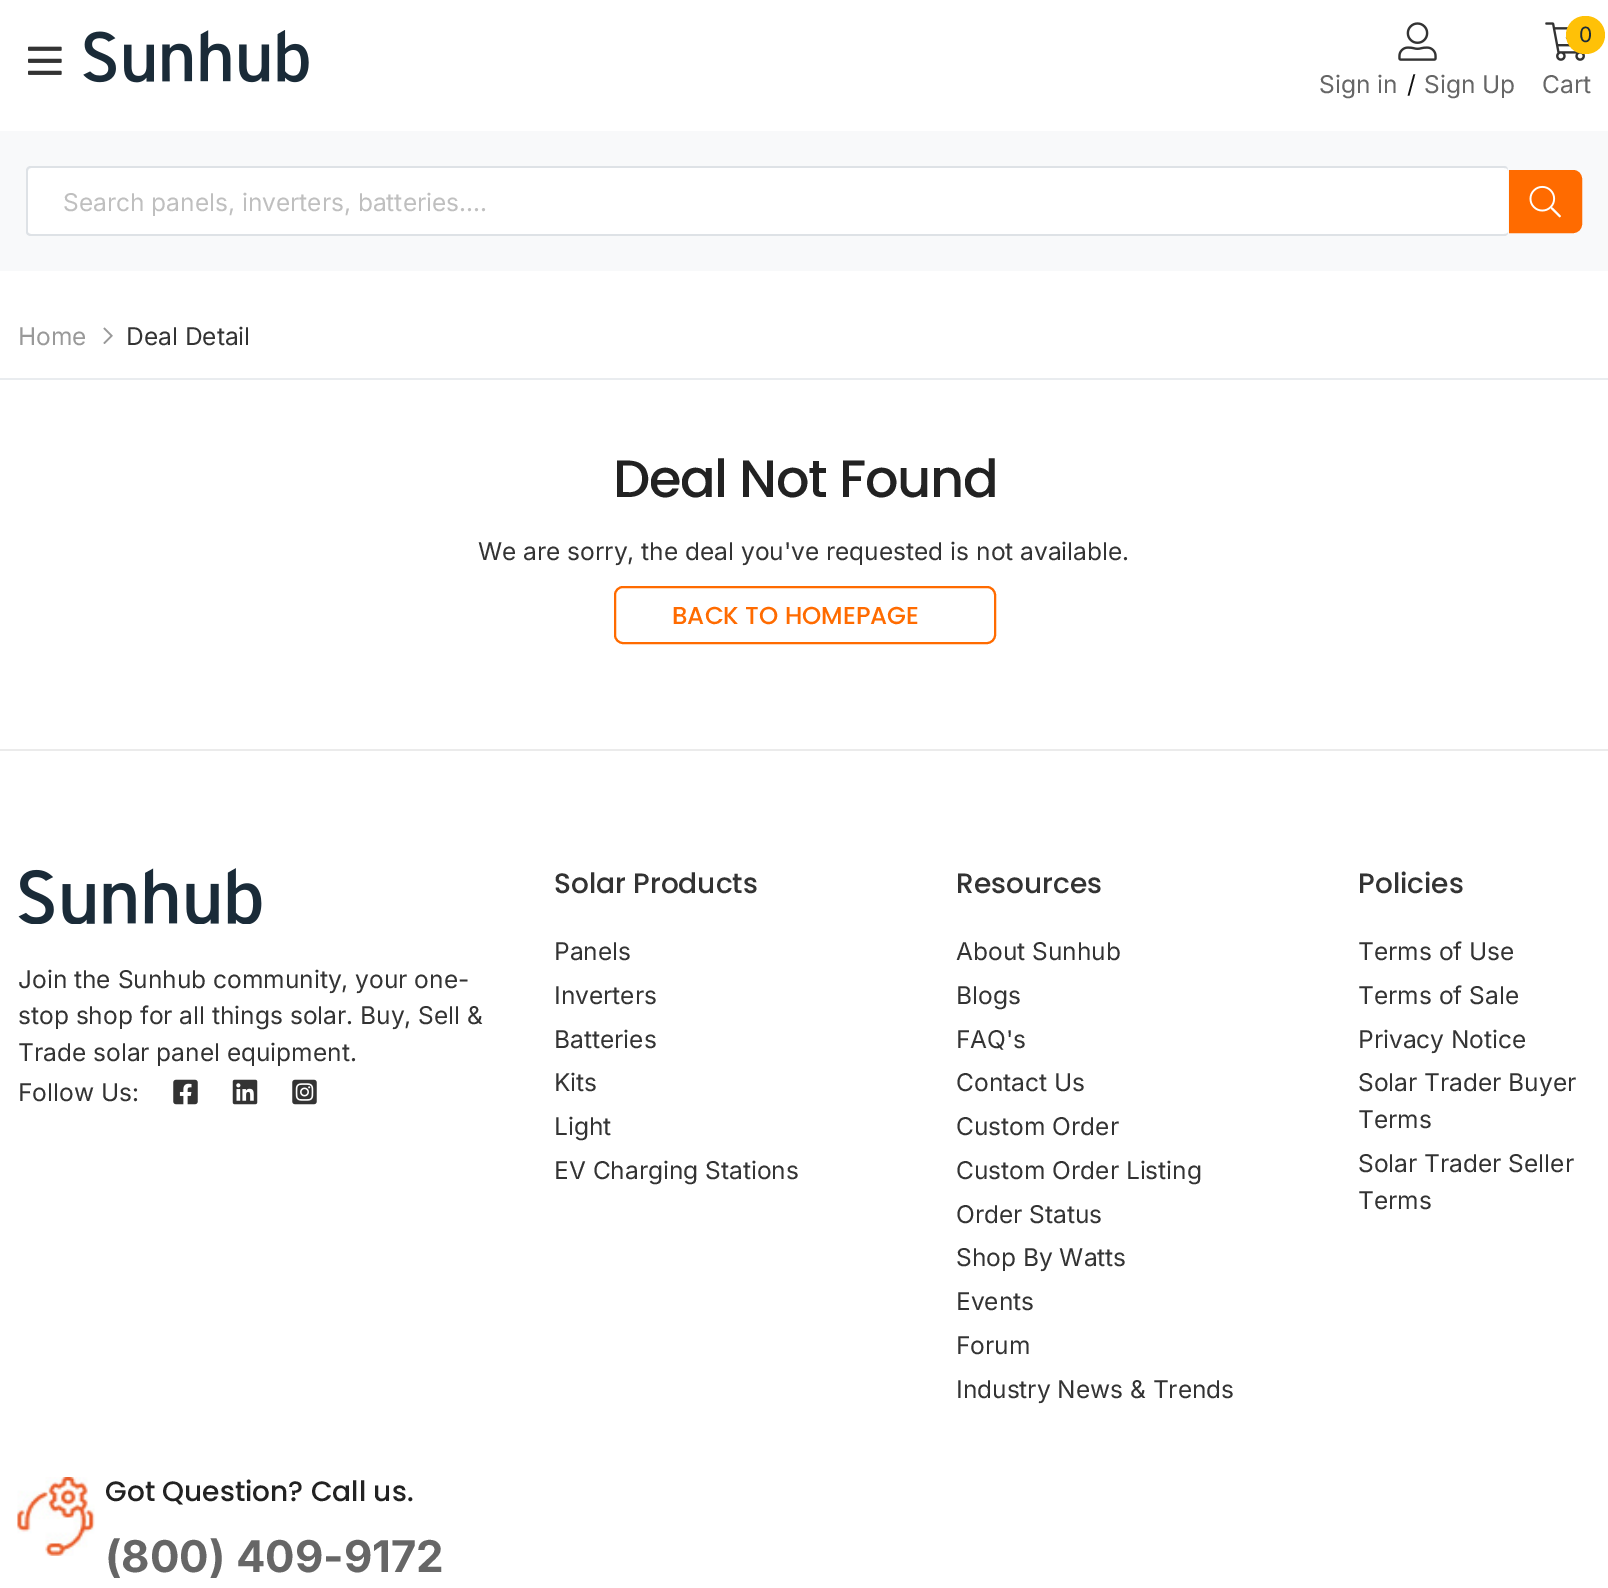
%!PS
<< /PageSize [1608 1588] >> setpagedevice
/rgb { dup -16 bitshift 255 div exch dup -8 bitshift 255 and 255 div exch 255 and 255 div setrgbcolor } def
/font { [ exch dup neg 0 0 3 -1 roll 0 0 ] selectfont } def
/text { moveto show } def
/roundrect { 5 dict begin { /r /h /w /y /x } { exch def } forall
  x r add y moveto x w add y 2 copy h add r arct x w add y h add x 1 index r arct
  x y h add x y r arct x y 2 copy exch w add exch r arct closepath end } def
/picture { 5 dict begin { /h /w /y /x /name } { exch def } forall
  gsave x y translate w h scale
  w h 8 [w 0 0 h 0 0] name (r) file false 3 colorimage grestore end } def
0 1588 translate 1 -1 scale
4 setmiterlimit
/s1 { /Inter-Regular 24.5 font 16#666666 rgb } def
/s2 { /Inter-Regular 24.5 font 16#111111 rgb } def
/s3 { /Inter-Regular 21 font 16#1A2B38 rgb } def
/s4 { /Inter-Regular 24.5 font 16#BFBFBF rgb } def
/s5 { /Inter-Regular 24.5 font 16#999999 rgb } def
/s6 { /Inter-Regular 24.5 font 16#333333 rgb } def
/s7 { /Poppins-Medium 24.5 font 16#FF6B00 rgb } def
/s8 { /Poppins-Medium 28 font 16#333333 rgb } def
/s9 { /Poppins-Medium 28 font 16#222222 rgb } def
/s10 { /Inter-Bold 43.75 font 16#666666 rgb } def
16#FFFFFF rgb
0 0 1608 1588 rectfill
(pic1.raw) 28 46 34 29 picture
(pic2.raw) 83 30 226 53 picture
(pic3.raw) 1398 22 39 39 picture
s1
(Sign in) 1319 93 text
s2
(/) 1407 93 text
s1
(Sign Up) 1424 93 text
(pic4.raw) 1545 22 40 39 picture
16#FFC107 rgb
1566 16 39 38 19 roundrect fill
s3
(0) 1579 42 text
s1
(Cart) 1542 93 text
16#F8F9FA rgb
0 131 1608 140 rectfill
16#FFFFFF rgb
31 168 moveto 1504 168 lineto 1507 168 1508 169 1508 171 curveto 1508 232 lineto 1508 233 1507 234 1504 234 curveto 31 234 lineto 29 234 28 233 28 232 curveto 28 171 lineto 28 169 29 168 31 168 curveto closepath fill
16#DEE2E6 rgb
31 166 moveto 1504 166 lineto 1507 166 1508 168 1508 171 curveto 1508 232 lineto 1508 234 1507 236 1504 236 curveto 31 236 lineto 28 236 26 234 26 232 curveto 26 171 lineto 26 168 28 166 31 166 curveto closepath 31 168 moveto 1504 168 lineto 1507 168 1508 169 1508 171 curveto 1508 232 lineto 1508 233 1507 234 1504 234 curveto 31 234 lineto 29 234 28 233 28 232 curveto 28 171 lineto 28 169 29 168 31 168 curveto closepath eofill
s4
(Search panels, inverters, batteries....) 63 211 text
16#FF6B00 rgb
1510 171 moveto 1573 171 lineto 1577.5 171 1581 174.5 1581 179 curveto 1581 224 lineto 1581 228.5 1577.5 232 1573 232 curveto 1510 232 lineto closepath gsave fill grestore
2 setlinewidth
stroke
(pic5.raw) 1529 185 32 33 picture
16#E9ECEF rgb
0 378 1608 2 rectfill
s5
(Home) 18 345 text
(pic6.raw) 103 327 10 17 picture
s6
(Deal Detail) 126 345 text
/Poppins-Medium 52.5 font
16#222222 rgb
613 497 moveto -1.25 0 (Deal Not Found) ashow
s6
(We are sorry, the deal you've requested is not available.) 478 560 text
16#FF6B00 rgb
615 587 380 56 8 roundrect stroke
s7
(BACK TO HOMEPAGE) 672 624 text
16#EBEBEB rgb
0 749 1608 2 rectfill
(pic7.raw) 18 868 244 56 picture
s6
(Join the Sunhub community, your one-) 18 988 text
(stop shop for all things solar. Buy, Sell &) 18 1024 text
(Trade solar panel equipment.) 18 1061 text
(Follow Us:) 18 1101 text
(pic8.raw) 173 1079 25 26 picture
(pic9.raw) 232 1079 26 26 picture
(pic10.raw) 292 1079 25 26 picture
s8
(Solar Products) 554 893 text
s6
(Panels) 554 960 text
(Inverters) 554 1004 text
(Batteries) 554 1048 text
(Kits) 554 1091 text
(Light) 554 1135 text
(EV Charging Stations) 554 1179 text
s8
(Resources) 956 893 text
s6
(About Sunhub) 956 960 text
(Blogs) 956 1004 text
(FAQ's) 956 1048 text
(Contact Us) 956 1091 text
(Custom Order) 956 1135 text
(Custom Order Listing) 956 1179 text
(Order Status) 956 1223 text
(Shop By Watts) 956 1266 text
(Events) 956 1310 text
(Forum) 956 1354 text
(Industry News & Trends) 956 1398 text
s8
(Policies) 1358 893 text
s6
(Terms of Use) 1358 960 text
(Terms of Sale) 1358 1004 text
(Privacy Notice) 1358 1048 text
(Solar Trader Buyer) 1358 1091 text
(Terms) 1358 1128 text
(Solar Trader Seller) 1358 1172 text
(Terms) 1358 1209 text
(pic11.raw) 17 1477 78 79 picture
s9
(Got Question? Call us.) 105 1501 text
s10
(\(800\) 409-9172) 105 1572 text
showpage
